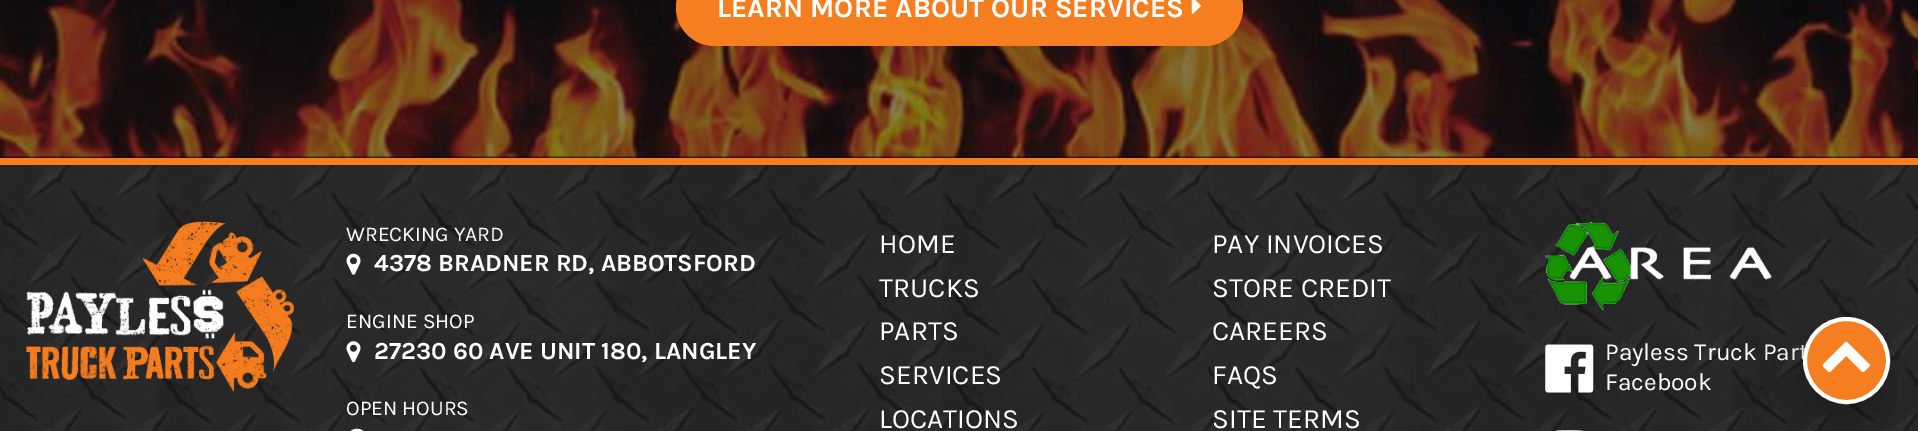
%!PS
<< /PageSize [1918 431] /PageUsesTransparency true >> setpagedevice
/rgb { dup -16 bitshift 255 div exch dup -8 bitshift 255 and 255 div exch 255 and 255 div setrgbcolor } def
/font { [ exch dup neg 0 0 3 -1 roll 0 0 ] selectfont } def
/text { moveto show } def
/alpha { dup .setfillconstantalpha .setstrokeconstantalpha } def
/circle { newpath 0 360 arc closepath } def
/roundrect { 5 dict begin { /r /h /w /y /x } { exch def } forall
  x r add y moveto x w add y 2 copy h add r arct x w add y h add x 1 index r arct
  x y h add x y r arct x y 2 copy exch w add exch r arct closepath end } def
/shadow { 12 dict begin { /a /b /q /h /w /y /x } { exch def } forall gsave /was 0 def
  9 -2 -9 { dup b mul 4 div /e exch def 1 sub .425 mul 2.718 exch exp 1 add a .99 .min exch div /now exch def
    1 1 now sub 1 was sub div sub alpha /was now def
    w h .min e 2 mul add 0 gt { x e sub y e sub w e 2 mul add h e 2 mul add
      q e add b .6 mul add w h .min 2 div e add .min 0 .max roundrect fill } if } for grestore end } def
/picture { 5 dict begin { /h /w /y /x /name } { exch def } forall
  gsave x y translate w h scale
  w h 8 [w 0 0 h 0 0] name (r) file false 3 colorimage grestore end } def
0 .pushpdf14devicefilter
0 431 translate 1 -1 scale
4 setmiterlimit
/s1 { /Karla-Bold 28 font 16#FFFFFF rgb } def
/s2 { /Karla-Regular 21 font 16#FFFFFF rgb } def
/s3 { /Karla-Bold 24.5 font 16#FFFFFF rgb } def
/s4 { /Karla-Regular 28 font 16#FFFFFF rgb } def
/s5 { /Karla-Regular 24.5 font 16#FFFFFF rgb } def
16#FFFFFF rgb
0 0 1918 431 rectfill
(pic1.raw) 0 165 1918 266 picture
16#000000 rgb
0 0 1918 158 rectfill
(pic2.raw) 0 0 1918 158 picture
16#F57E20 rgb
676 -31 567 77 38.5 roundrect fill
s1
(LEARN MORE ABOUT OUR SERVICES) 717 17 text
(pic3.raw) 1191 0 10 14 picture
16#F57E20 rgb
0 158 1918 7 rectfill
(pic4.raw) 26 221 268 172 picture
s2
(WRECKING YARD) 346 241 text
(pic5.raw) 346 253 15 22 picture
s3
(4378 BRADNER RD, ABBOTSFORD) 374 271 text
s2
(ENGINE SHOP) 346 328 text
(pic6.raw) 346 341 15 22 picture
s3
(27230 60 AVE UNIT 180, LANGLEY) 374 359 text
s2
(OPEN HOURS) 346 415 text
(pic7.raw) 350 428 14 3 picture
s4
(HOME) 879 253 text
(TRUCKS) 879 297 text
(PARTS) 879 340 text
(SERVICES) 879 384 text
(LOCATIONS) 879 428 text
(PAY INVOICES) 1212 253 text
(STORE CREDIT) 1212 297 text
(CAREERS) 1212 340 text
(FAQS) 1212 384 text
(SITE TERMS) 1212 428 text
(pic8.raw) 1545 222 227 88 picture
(pic9.raw) 1545 344 49 49 picture
s5
(Payless Truck Part) 1605 360 text
(Facebook) 1605 390 text
(pic10.raw) 1555 430 28 1 picture
16#0A0A0A rgb
1803 326 87 87 43.5 13 0.15 shadow
1803 348 87 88 43.5 30.5 0.25 shadow
16#F57E20 rgb
1846.5 360.5 41.5 circle gsave fill grestore
16#FFFFFF rgb
4 setlinewidth
stroke
(pic11.raw) 1822 341 48 32 picture
.poppdf14devicefilter showpage
